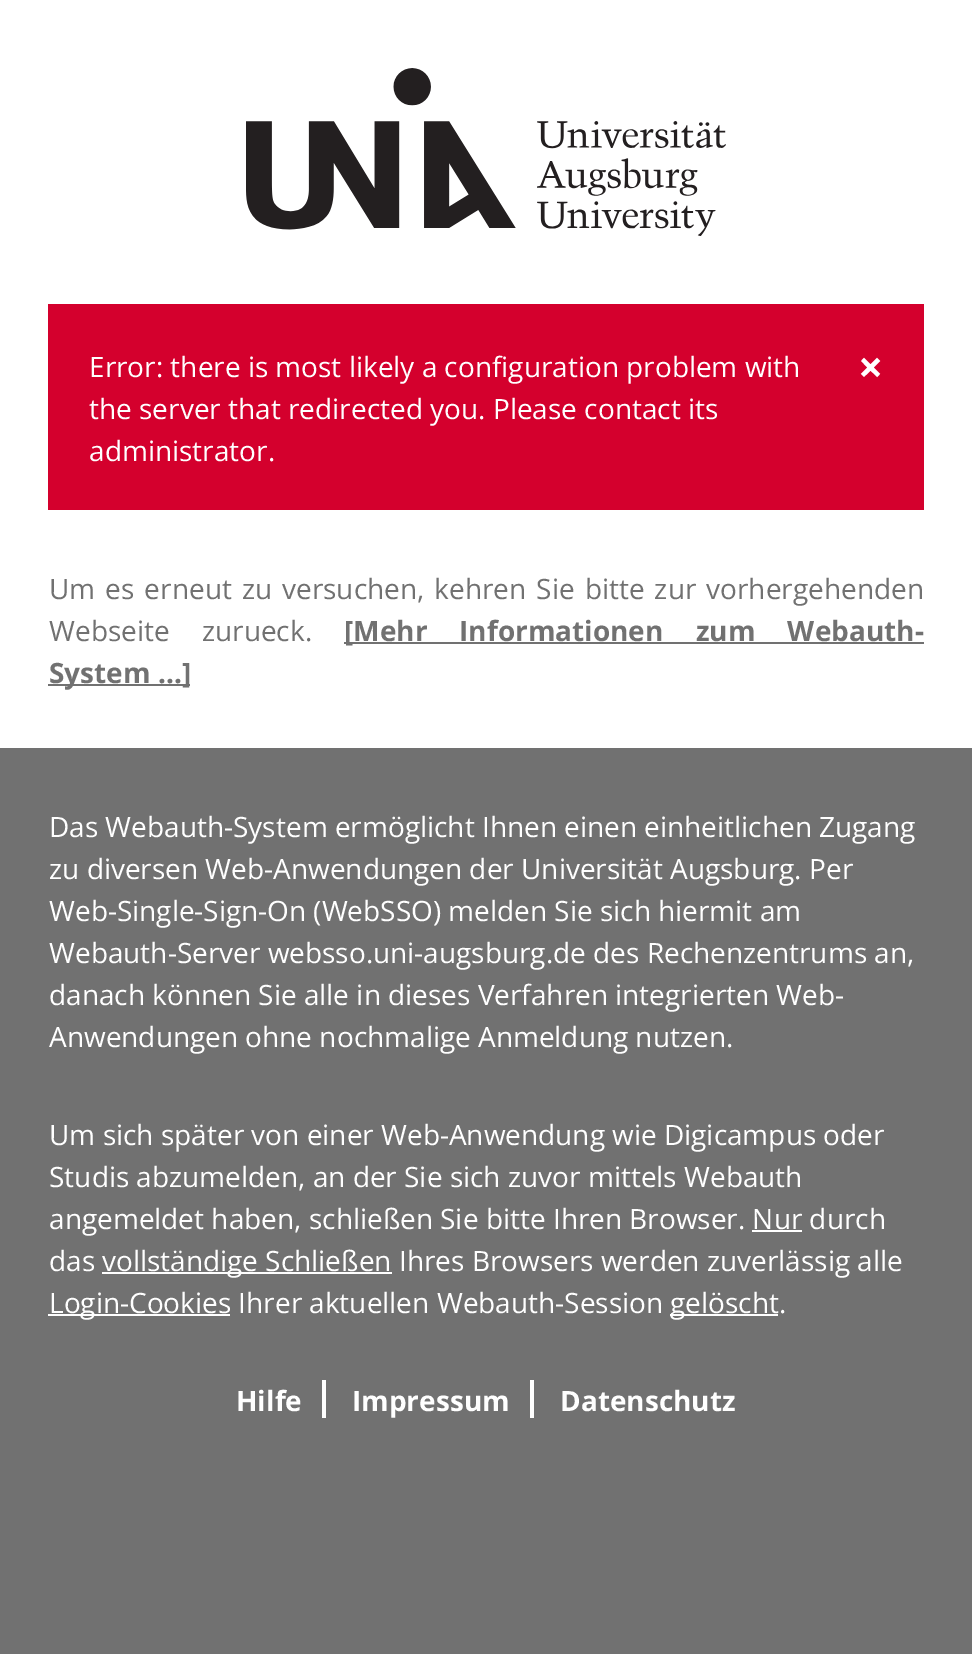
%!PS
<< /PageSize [972 1654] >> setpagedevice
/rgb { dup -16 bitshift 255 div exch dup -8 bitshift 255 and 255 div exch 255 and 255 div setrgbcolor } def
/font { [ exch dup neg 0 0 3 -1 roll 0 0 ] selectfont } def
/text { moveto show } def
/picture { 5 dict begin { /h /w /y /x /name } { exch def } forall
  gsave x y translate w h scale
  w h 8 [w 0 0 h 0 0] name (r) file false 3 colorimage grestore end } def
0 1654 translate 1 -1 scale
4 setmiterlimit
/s1 { /OpenSans-Regular 28 font 16#FFFFFF rgb } def
/s2 { /OpenSans-Bold 44 font 16#FFFFFF rgb } def
/s3 { /OpenSans-Bold 28 font 16#717171 rgb } def
/s4 { /OpenSans-Bold 28 font 16#FFFFFF rgb } def
16#717171 rgb
0 0 972 1654 rectfill
16#FFFFFF rgb
0 0 972 748 rectfill
(pic1.raw) 246 68 480 168 picture
16#D4002D rgb
48 304 876 206 rectfill
s1
(Error: there is most likely a configuration problem with) 89 377 text
s2
(×) 858 383 text
s1
(the server that redirected you. Please contact its) 89 419 text
(administrator.) 89 461 text
16#717171 rgb
49 599 moveto 2.75 0 32 (Um es erneut zu versuchen, kehren Sie bitte zur vorhergehenden) widthshow
49 641 moveto 25 0 32 (Webseite zurueck.) widthshow
344 642 580 2 rectfill
s3
([Mehr) 344 641 text
459 641 moveto 25 0 32 (Informationen zum Webauth-) widthshow
48 684 142 2 rectfill
(System ...]) 49 683 text
s1
(Das Webauth-System ermöglicht Ihnen einen einheitlichen Zugang) 49 837 text
(zu diversen Web-Anwendungen der Universität Augsburg. Per) 49 879 text
(Web-Single-Sign-On \(WebSSO\) melden Sie sich hiermit am) 49 921 text
(Webauth-Server websso.uni-augsburg.de des Rechenzentrums an,) 49 963 text
(danach können Sie alle in dieses Verfahren integrierten Web-) 49 1005 text
(Anwendungen ohne nochmalige Anmeldung nutzen.) 49 1047 text
(Um sich später von einer Web-Anwendung wie Digicampus oder) 49 1145 text
(Studis abzumelden, an der Sie sich zuvor mittels Webauth) 49 1187 text
(angemeldet haben, schließen Sie bitte Ihren Browser. Nur durch) 49 1229 text
752 1230 50 2 rectfill
(das) 49 1271 text
102 1272 290 2 rectfill
(vollständige Schließen Ihres Browsers werden zuverlässig alle) 102 1271 text
48 1314 182 2 rectfill
(Login-Cookies Ihrer aktuellen Webauth-Session) 49 1313 text
670 1314 108 2 rectfill
(gelöscht.) 670 1313 text
s4
(Hilfe) 236 1411 text
322 1380 4 38 rectfill
(Impressum) 352 1411 text
530 1380 4 38 rectfill
(Datenschutz) 560 1411 text
showpage
